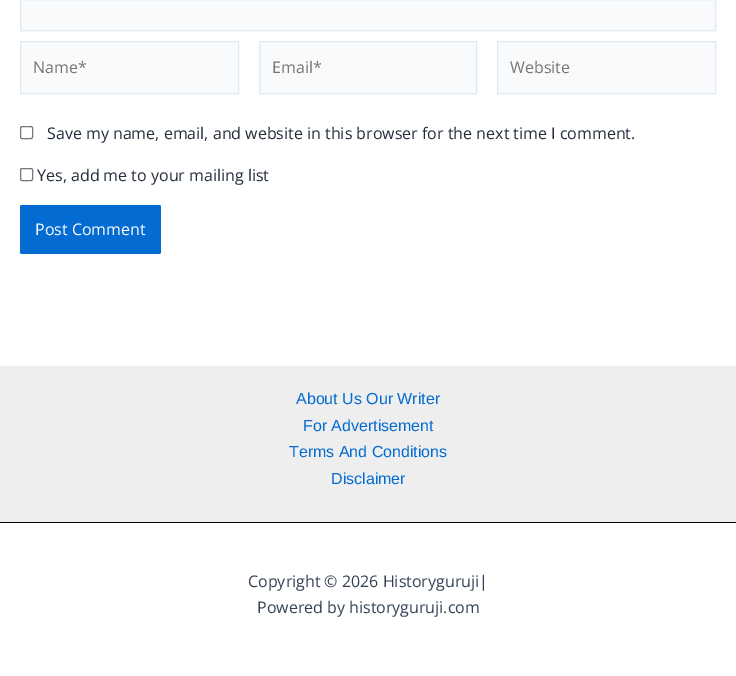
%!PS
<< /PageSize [736 676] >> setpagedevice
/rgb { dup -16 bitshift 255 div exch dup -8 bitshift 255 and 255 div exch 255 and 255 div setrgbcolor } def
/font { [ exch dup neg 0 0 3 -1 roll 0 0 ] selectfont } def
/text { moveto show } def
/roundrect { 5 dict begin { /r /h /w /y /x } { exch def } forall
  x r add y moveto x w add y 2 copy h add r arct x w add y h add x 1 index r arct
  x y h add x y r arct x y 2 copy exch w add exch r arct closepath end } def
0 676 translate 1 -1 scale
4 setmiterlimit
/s1 { /OpenSans-Regular 16 font 16#757575 rgb } def
/s2 { /OpenSans-Regular 16 font 16#222C3A rgb } def
/s3 { /OpenSans-Regular 16 font 16#FFFFFF rgb } def
/s4 { /LiberationSans-Regular 16 font 16#046BD2 rgb } def
/s5 { /OpenSans-Regular 16 font 16#334155 rgb } def
16#FFFFFF rgb
0 0 736 676 rectfill
16#F9FAFB rgb
20.5 -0.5 moveto 715.5 -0.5 lineto 715.5 30.5 lineto 20.5 30.5 lineto closepath gsave fill grestore
16#E2E8F0 rgb
stroke
16#F9FAFB rgb
20.5 41.5 moveto 238.5 41.5 lineto 238.5 93.5 lineto 20.5 93.5 lineto closepath gsave fill grestore
16#E2E8F0 rgb
stroke
s1
(Name*) 33 73 text
16#F9FAFB rgb
259.5 41.5 moveto 476.5 41.5 lineto 476.5 93.5 lineto 259.5 93.5 lineto closepath gsave fill grestore
16#E2E8F0 rgb
stroke
s1
(Email*) 272 73 text
16#F9FAFB rgb
497.5 41.5 moveto 715.5 41.5 lineto 715.5 93.5 lineto 497.5 93.5 lineto closepath gsave fill grestore
16#E2E8F0 rgb
stroke
s1
(Website) 510 73 text
16#767676 rgb
20.5 126.5 12 12 1.5 roundrect stroke
s2
(Save my name, email, and website in this browser for the next time I comment.) 47 139 text
16#767676 rgb
20.5 168.5 12 12 1.5 roundrect stroke
s2
(Yes, add me to your mailing list) 37 181 text
16#046BD2 rgb
20 205 141 49 2 roundrect fill
s3
(Post Comment) 35 235 text
16#EEEEEE rgb
0 366 736 156 rectfill
s4
(About Us Our Writer) 296 404 text
(For Advertisement) 303 431 text
(Terms And Conditions) 289 457 text
(Disclaimer) 331 484 text
16#0F0101 rgb
0 522 736 1 rectfill
s5
(Copyright © 2026 Historyguruji|) 248 587 text
(Powered by historyguruji.com) 257 613 text
showpage
